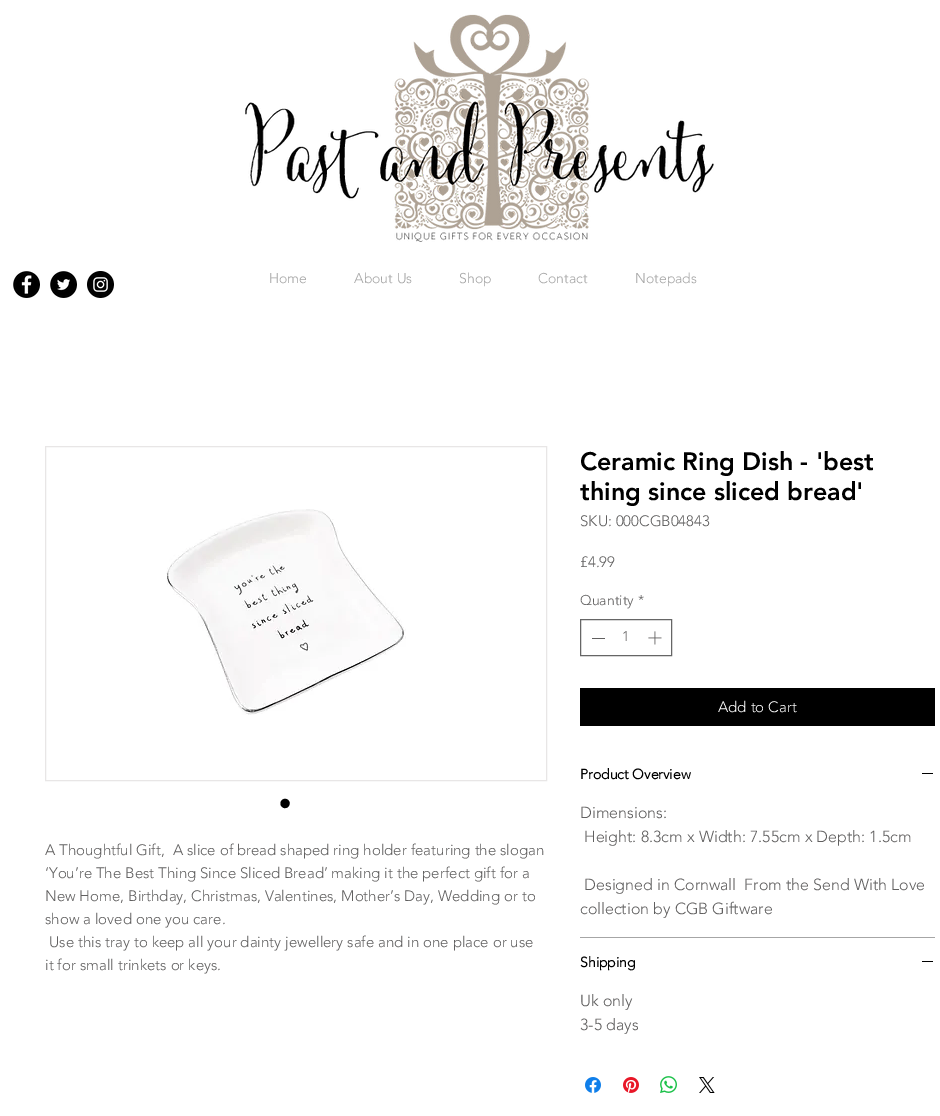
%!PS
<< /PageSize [940 1116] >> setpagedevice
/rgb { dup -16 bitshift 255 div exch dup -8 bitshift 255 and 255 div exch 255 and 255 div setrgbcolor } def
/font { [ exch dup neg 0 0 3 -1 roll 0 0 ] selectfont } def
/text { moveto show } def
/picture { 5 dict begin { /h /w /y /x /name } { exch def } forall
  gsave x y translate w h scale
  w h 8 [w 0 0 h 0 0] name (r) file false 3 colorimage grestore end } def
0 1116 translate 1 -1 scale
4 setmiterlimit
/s1 { /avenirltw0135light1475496-Light 14 font 16#A6A6A6 rgb } def
/s2 { /LiberationSans-Regular 35 font 16#000000 rgb } def
/s3 { /avenirltw0135light1475496-Light 15 font 16#616060 rgb } def
/s4 { /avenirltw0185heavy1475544-Black 25 font 16#000000 rgb } def
/s5 { /avenirltw0135light1475496-Light 14 font 16#616060 rgb } def
/s6 { /avenirltw0135light1475496-Light 15 font 16#FFFFFF rgb } def
/s7 { /avenirltw0135light1475496-Bold 14 font 16#000000 rgb } def
/s8 { /avenirltw0135light1475496-Light 16 font 16#616060 rgb } def
16#FFFFFF rgb
0 0 940 1116 rectfill
(pic1.raw) 245 14 469 228 picture
(pic2.raw) 13 271 27 27 picture
(pic3.raw) 50 271 27 27 picture
(pic4.raw) 87 271 27 27 picture
s1
(Home) 269 283 text
(About Us) 354 283 text
(Shop) 459 283 text
(Contact) 538 283 text
(Notepads) 635 283 text
16#E8E6E6 rgb
45.5 446.5 501 334 rectstroke
(pic5.raw) 166 509 240 206 picture
s2
(•) 279 815 text
s3
(A Thoughtful Gift,  A slice of bread shaped ring holder featuring the slogan) 45 855 text
(‘You’re The Best Thing Since Sliced Bread’ making it the perfect gift for a) 45 878 text
(New Home, Birthday, Christmas, Valentines, Mother’s Day, Wedding or to) 45 901 text
(show a loved one you care.) 45 924 text
(Use this tray to keep all your dainty jewellery safe and in one place or use) 49 947 text
(it for small trinkets or keys.) 45 970 text
s4
(Ceramic Ring Dish - 'best) 580 470 text
(thing since sliced bread') 580 500 text
s3
(SKU: 000CGB04843) 580 526 text
(£4.99) 580 567 text
s5
(Quantity) 580 605 text
(*) 638 605 text
16#666666 rgb
580.5 619.5 91 36 rectstroke
16#616060 rgb
592 638 13 1 rectfill
(1) 622 641 text
(pic6.raw) 648 631 14 14 picture
16#000000 rgb
580 688 355 38 rectfill
s6
(Add to Cart) 718 712 text
16#A6A6A6 rgb
580 937 355 1 rectfill
s7
(Product Overview) 580 779 text
922 773 11 1 rectfill
s8
(Dimensions:) 580 818 text
(Height: 8.3cm x Width: 7.55cm x Depth: 1.5cm) 584 842 text
(Designed in Cornwall  From the Send With Love) 584 890 text
(collection by CGB Giftware) 580 914 text
s7
(Shipping) 580 967 text
922 961 11 1 rectfill
s8
(Uk only) 580 1006 text
(3-5 days) 580 1030 text
(pic7.raw) 585 1077 16 16 picture
(pic8.raw) 623 1077 16 16 picture
(pic9.raw) 660 1076 17 17 picture
(pic10.raw) 699 1077 16 16 picture
showpage
